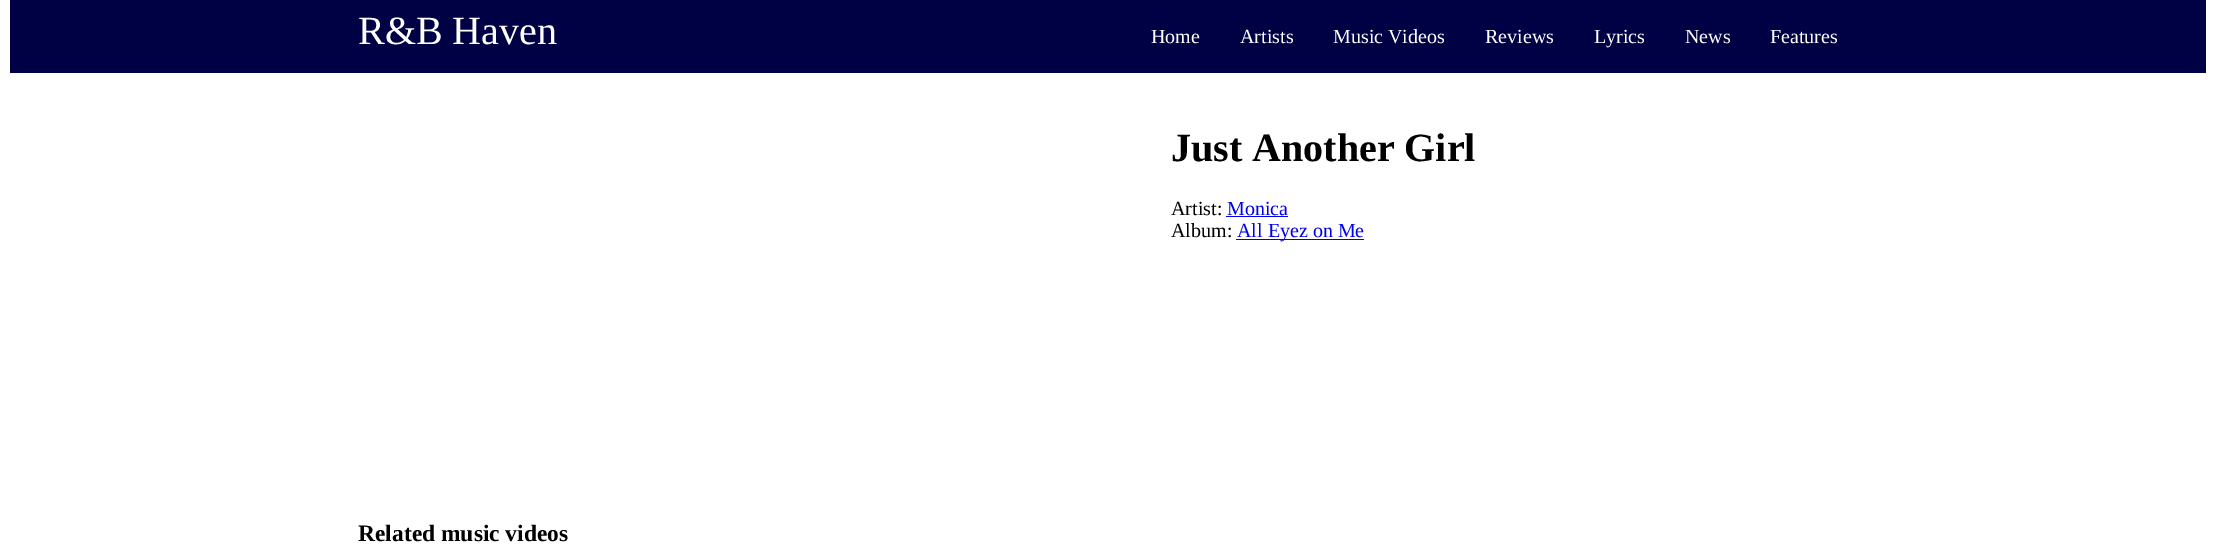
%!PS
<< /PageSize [2216 560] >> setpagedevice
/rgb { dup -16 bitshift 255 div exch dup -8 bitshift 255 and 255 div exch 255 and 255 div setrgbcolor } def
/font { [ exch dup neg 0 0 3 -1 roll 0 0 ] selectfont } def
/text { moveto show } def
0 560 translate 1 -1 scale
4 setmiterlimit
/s1 { /LiberationSerif-Regular 40 font 16#FFFFFF rgb } def
/s2 { /LiberationSerif-Regular 20 font 16#FFFFFF rgb } def
/s3 { /LiberationSerif-Bold 40 font 16#000000 rgb } def
/s4 { /LiberationSerif-Regular 20 font 16#000000 rgb } def
/s5 { /LiberationSerif-Regular 20 font 16#0000EE rgb } def
/s6 { /LiberationSerif-Bold 23.5 font 16#000000 rgb } def
16#FFFFFF rgb
0 0 2216 560 rectfill
16#000044 rgb
10 0 2196 73 rectfill
s1
(R&B Haven) 358 44 text
s2
(Home) 1151 43 text
(Artists) 1240 43 text
(Music Videos) 1333 43 text
(Reviews) 1485 43 text
(Lyrics) 1594 43 text
(News) 1685 43 text
(Features) 1770 43 text
s3
(Just Another Girl) 1171 161 text
s4
(Artist:) 1171 215 text
s5
(Monica) 1227 215 text
1226 216 62 1 rectfill
s4
(Album:) 1171 237 text
16#0000EE rgb
1236 239 128 1 rectfill
(All Eyez on Me) 1237 237 text
s6
(Related music videos) 358 541 text
showpage
